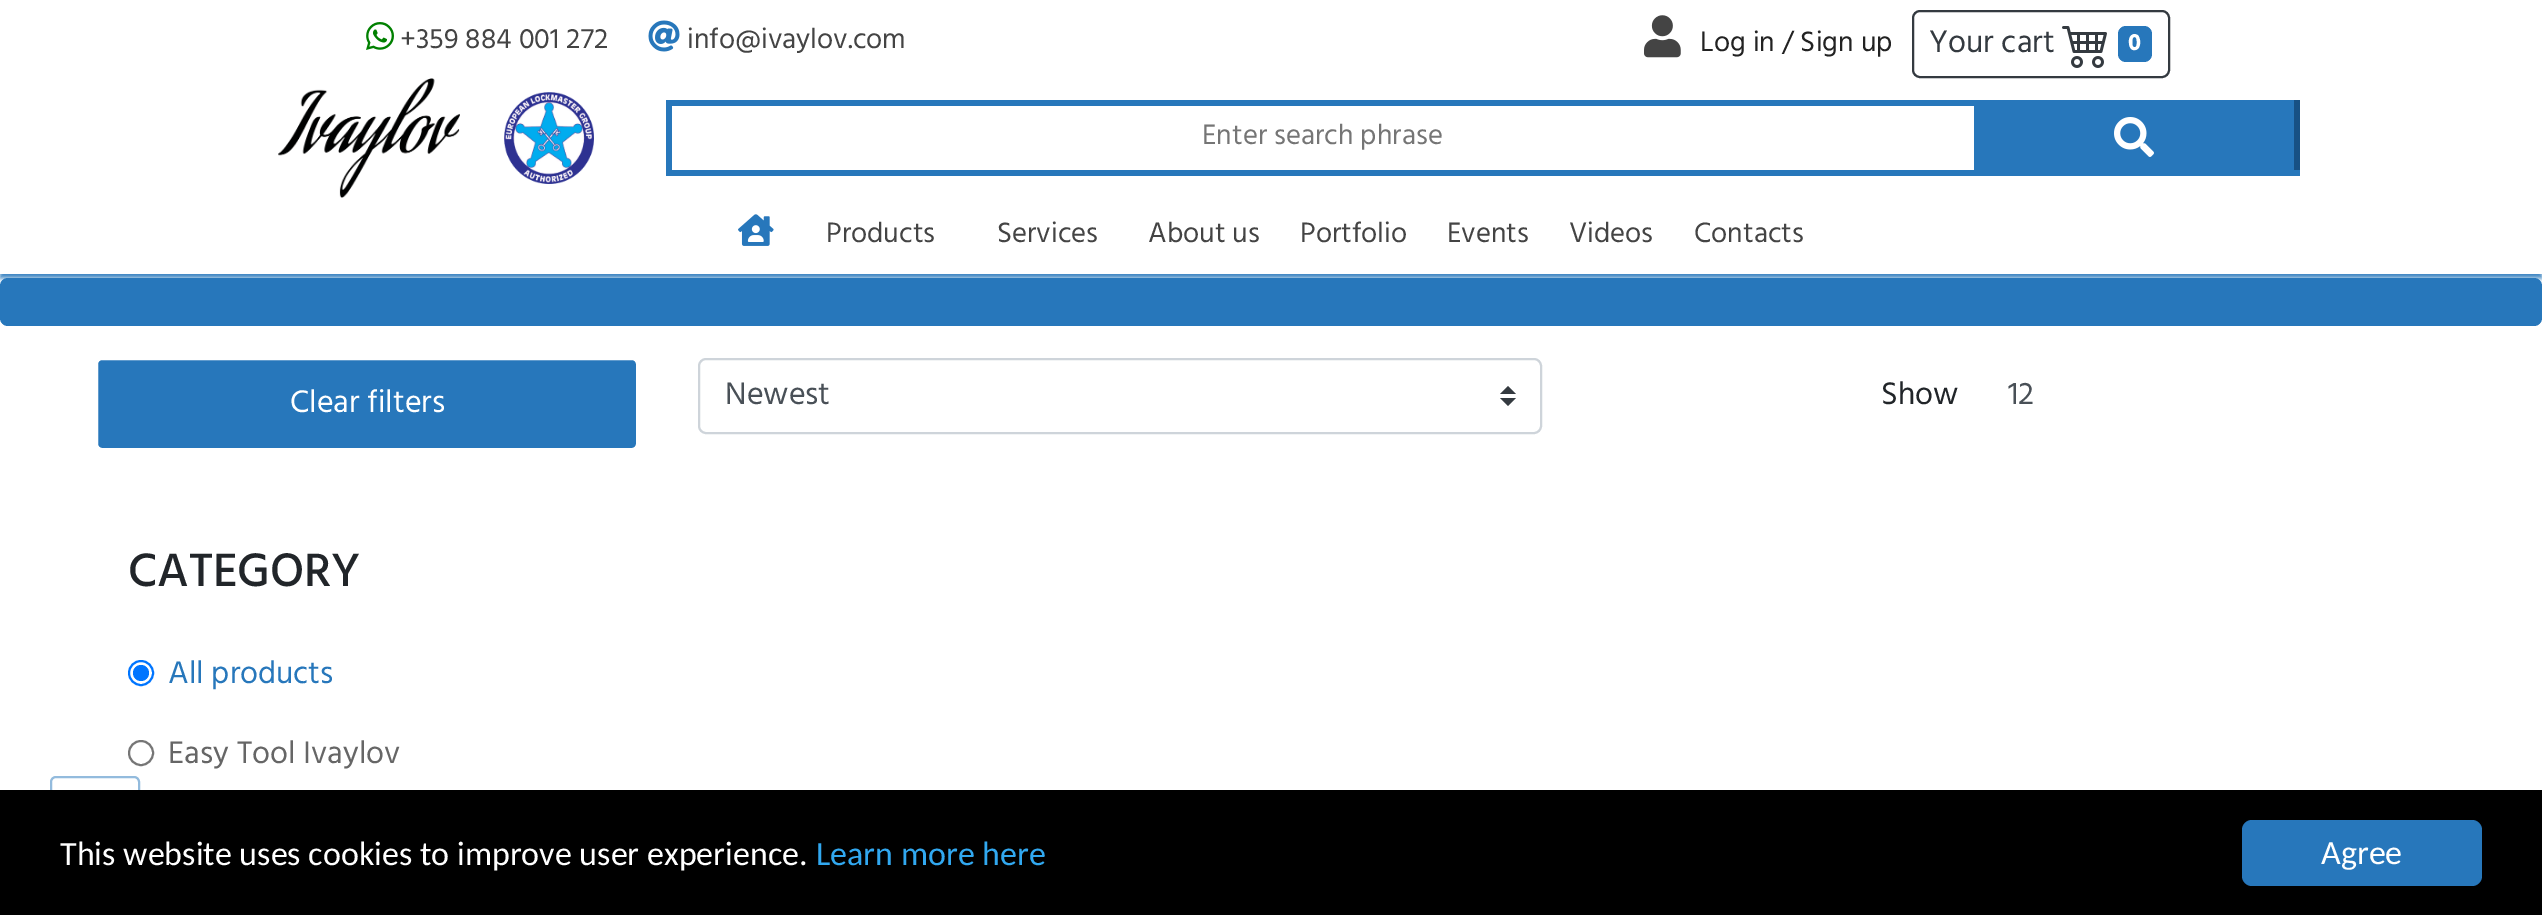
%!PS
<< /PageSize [2542 915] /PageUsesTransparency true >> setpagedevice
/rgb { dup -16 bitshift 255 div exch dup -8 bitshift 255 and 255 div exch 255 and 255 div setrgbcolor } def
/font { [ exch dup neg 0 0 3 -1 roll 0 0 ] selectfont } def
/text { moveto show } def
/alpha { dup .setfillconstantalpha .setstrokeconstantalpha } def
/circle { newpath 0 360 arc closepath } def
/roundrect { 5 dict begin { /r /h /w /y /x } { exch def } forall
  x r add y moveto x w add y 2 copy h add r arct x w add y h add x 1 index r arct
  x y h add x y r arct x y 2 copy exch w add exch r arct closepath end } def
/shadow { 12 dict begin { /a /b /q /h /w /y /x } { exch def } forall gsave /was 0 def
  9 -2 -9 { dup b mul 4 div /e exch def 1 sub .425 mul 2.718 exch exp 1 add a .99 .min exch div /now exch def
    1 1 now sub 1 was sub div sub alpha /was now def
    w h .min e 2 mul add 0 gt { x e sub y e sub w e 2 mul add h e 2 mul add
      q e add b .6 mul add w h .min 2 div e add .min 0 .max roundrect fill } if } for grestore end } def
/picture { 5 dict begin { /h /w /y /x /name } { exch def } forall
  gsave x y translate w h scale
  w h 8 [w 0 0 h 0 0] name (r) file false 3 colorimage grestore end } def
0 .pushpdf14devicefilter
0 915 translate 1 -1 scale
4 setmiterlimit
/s1 { /Hind-Regular 28.75 font 16#444444 rgb } def
/s2 { /Hind-Regular 28.75 font 16#222222 rgb } def
/s3 { /Hind-Regular 32 font 16#343A40 rgb } def
/s4 { /Hind-Bold 24 font 16#FFFFFF rgb } def
/s5 { /Hind-Regular 28.75 font 16#757575 rgb } def
/s6 { /Hind-Regular 32 font 16#FFFFFF rgb } def
/s7 { /Hind-Medium 48 font 16#212529 rgb } def
/s8 { /Hind-Regular 32 font 16#2777BB rgb } def
/s9 { /Hind-Regular 32 font 16#666666 rgb } def
/s10 { /Hind-Regular 32 font 16#495057 rgb } def
/s11 { /Hind-Regular 32 font 16#212529 rgb } def
/s12 { /Carlito-Regular 34 font 16#FFFFFF rgb } def
/s13 { /Carlito-Regular 34 font 16#31A8F0 rgb } def
16#FFFFFF rgb
0 0 2542 915 rectfill
16#2777BB rgb
0 278 2542 48 8 roundrect fill
gsave
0 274 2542 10 rectclip
0 4 2542 274 0 3 1 shadow
grestore
(pic1.raw) 366 22 28 28 picture
s1
(+359 884 001 272) 400 48 text
(pic2.raw) 648 20 32 32 picture
(info@ivaylov.com) 687 48 text
(pic3.raw) 1644 15 37 43 picture
s2
(Log in / Sign up) 1700 51 text
16#343A40 rgb
2 setlinewidth
1913 11 256 66 7 roundrect stroke
s3
(Your cart) 1929 52 text
(pic4.raw) 2062 26 45 42 picture
16#2777BB rgb
2118 26 34 36 8 roundrect fill
s4
(0) 2128 50 text
(pic5.raw) 278 78 182 120 picture
(pic6.raw) 504 92 90 92 picture
16#2777BB rgb
1974 100 326 76 rectfill
666 100 1308 6 rectfill
666 170 1308 6 rectfill
666 100 6 76 rectfill
s5
(Enter search phrase) 1202 144 text
16#175184 rgb
2294 100 6 70 rectfill
(pic7.raw) 2114 117 40 40 picture
(pic8.raw) 738 214 36 32 picture
s1
(Products) 826 242 text
(Services) 997 242 text
(About us) 1148 242 text
(Portfolio) 1300 242 text
(Events) 1447 242 text
(Videos) 1569 242 text
(Contacts) 1694 242 text
0.5 alpha
16#2777BB rgb
51 777 88 88 5 roundrect stroke
1 alpha
97 359 540 90 5 roundrect gsave fill grestore
16#FFFFFF rgb
stroke
s6
(Clear filters) 290 412 text
s7
(CATEGORY) 128 586 text
16#0075FF rgb
141 673 12 circle stroke
141 673 8 circle fill
s8
(All products) 168 683 text
16#767676 rgb
141 753 12 circle stroke
s9
(Easy Tool Ivaylov) 168 763 text
16#343A40 rgb
1508 386 moveto 1500 394 lineto 1516 394 lineto closepath 1508 406 moveto 1500 398 lineto 1516 398 lineto closepath fill
16#CED4DA rgb
699 359 842 74 7 roundrect stroke
s10
(Newest) 725 404 text
s11
(Show) 1881 404 text
s10
(12) 2008 404 text
16#000000 rgb
0 790 2542 125 rectfill
s12
(This website uses cookies to improve user experience.) 60 865 text
s13
(Learn more here) 816 865 text
16#2777BB rgb
2242 820 240 66 10 roundrect fill
s12
(Agree) 2321 864 text
.poppdf14devicefilter showpage
